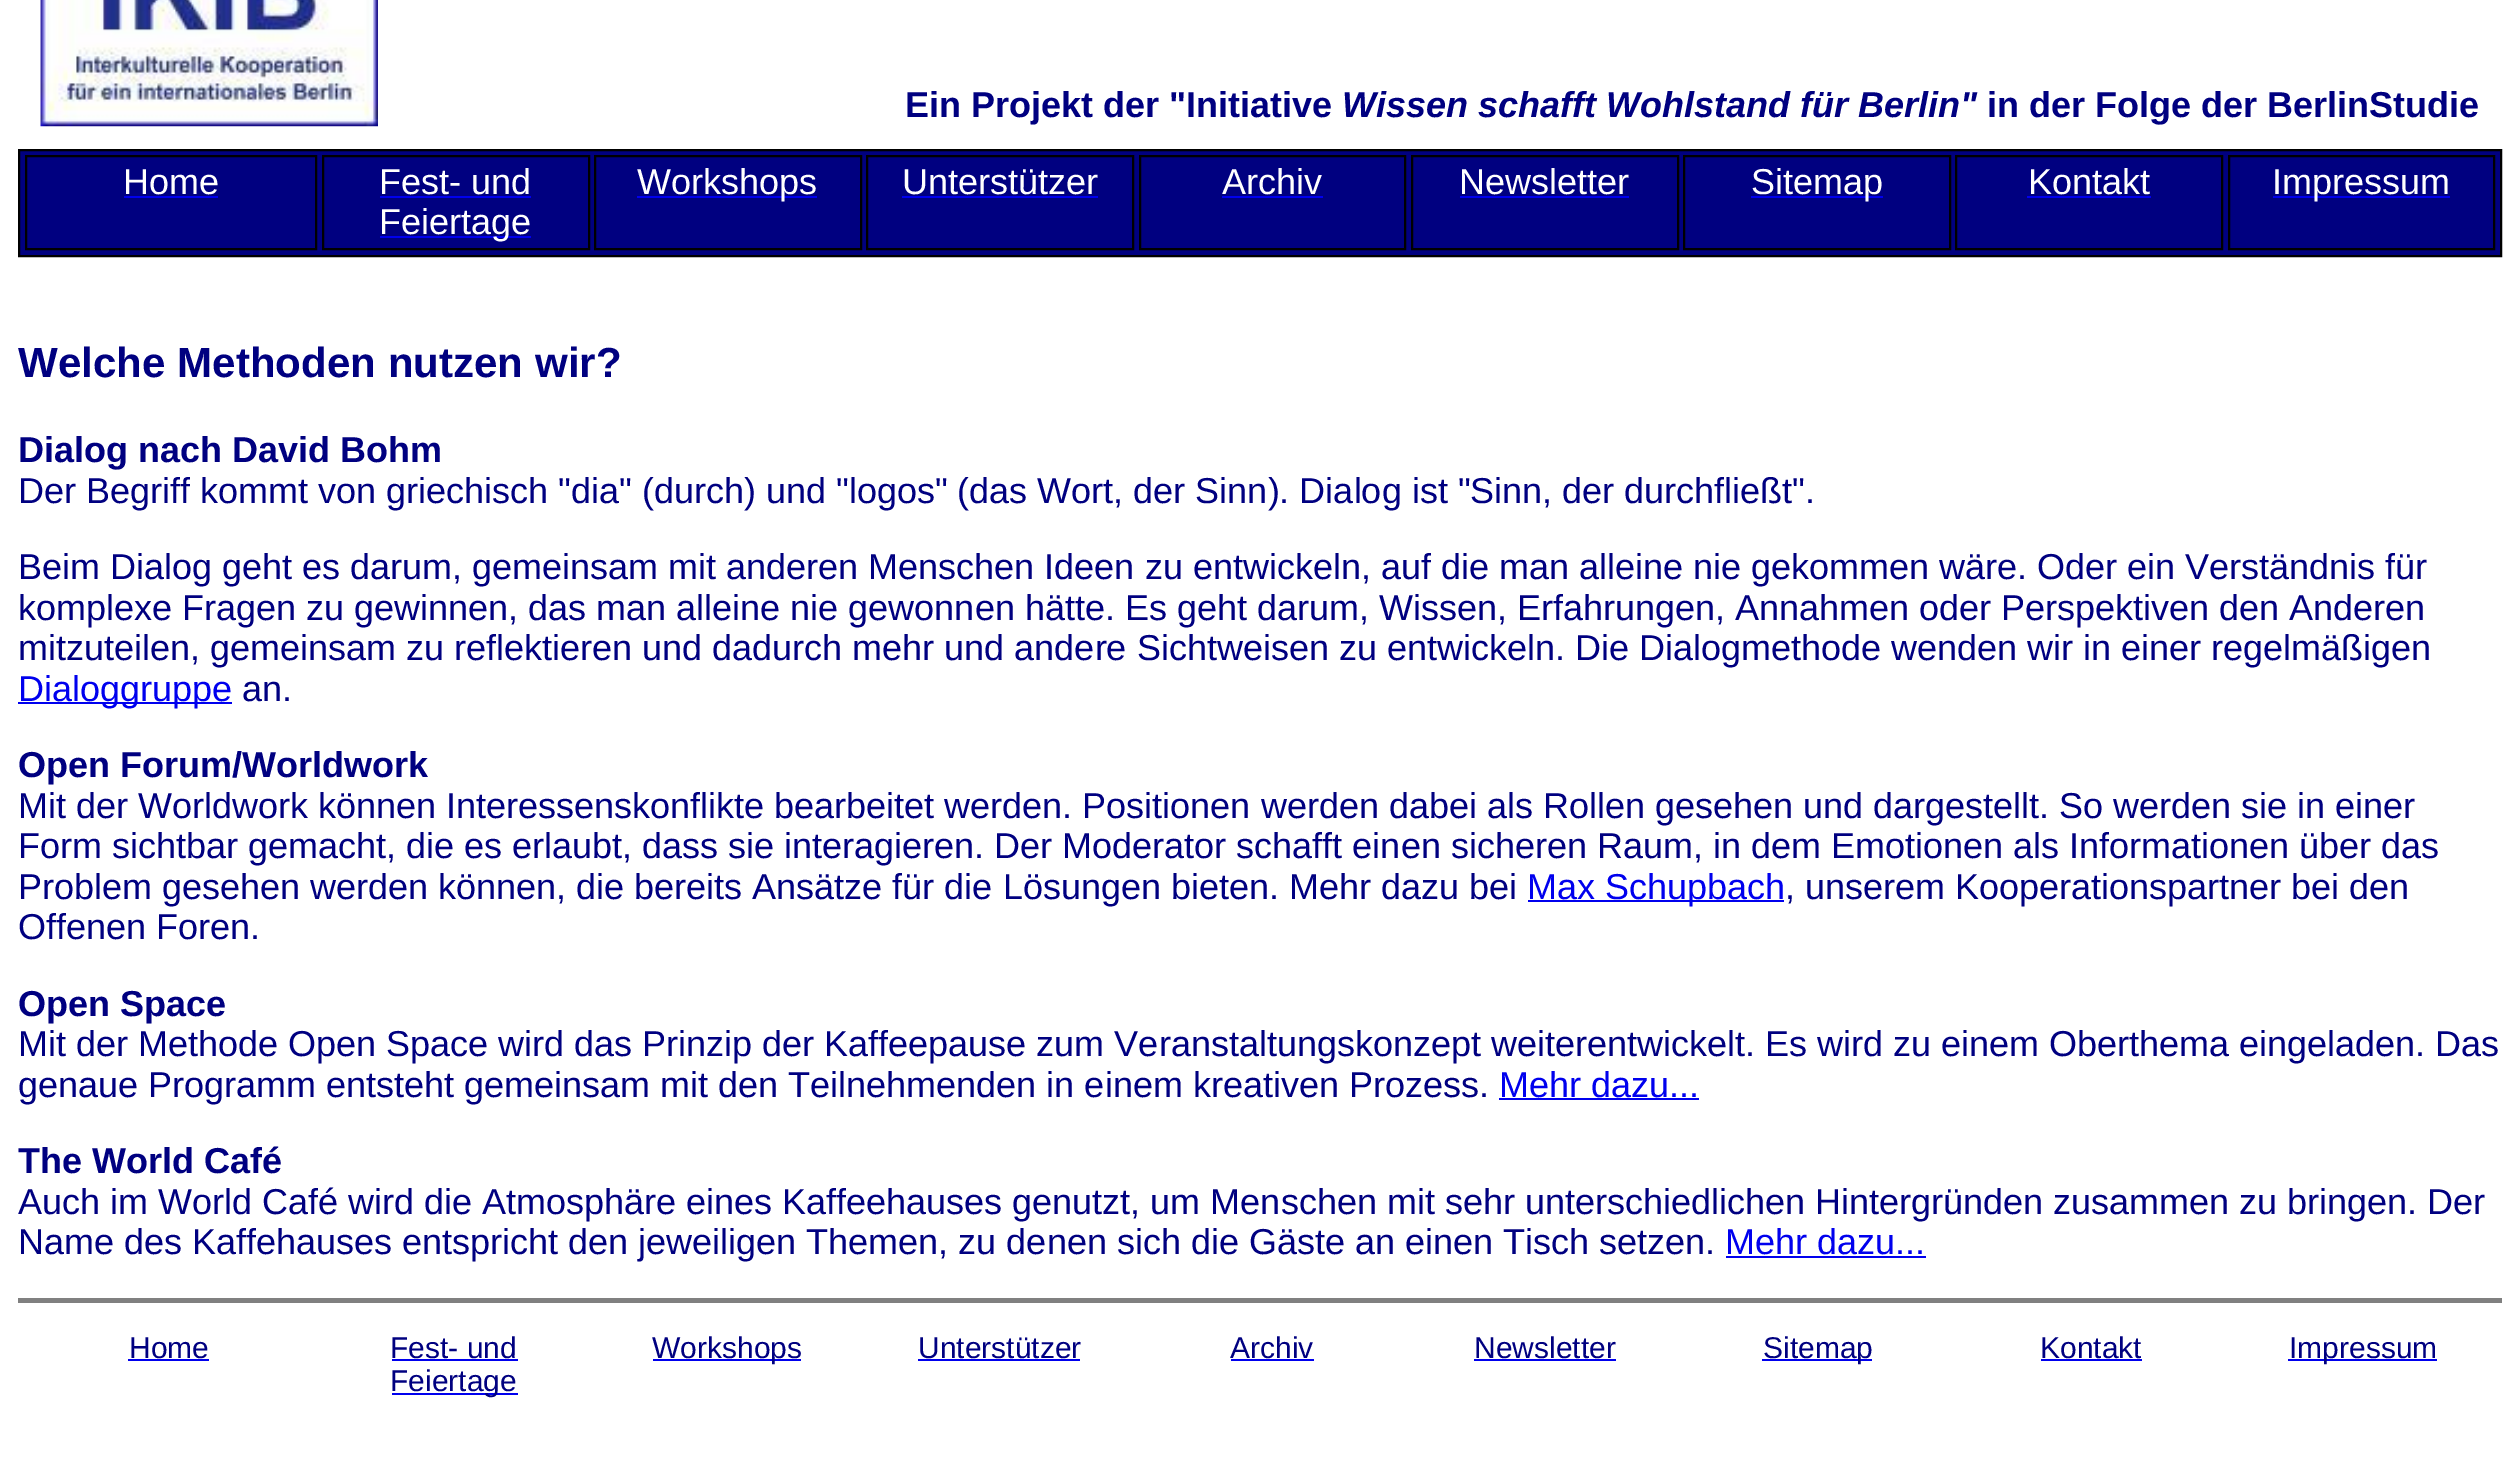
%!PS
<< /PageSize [2519 1484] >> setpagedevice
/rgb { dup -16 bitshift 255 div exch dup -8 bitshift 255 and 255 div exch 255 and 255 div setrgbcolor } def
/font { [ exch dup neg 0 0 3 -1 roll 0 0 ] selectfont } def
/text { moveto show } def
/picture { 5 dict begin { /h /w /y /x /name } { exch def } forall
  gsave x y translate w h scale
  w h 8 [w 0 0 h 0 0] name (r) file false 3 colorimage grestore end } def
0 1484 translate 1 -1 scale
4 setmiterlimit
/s1 { /LiberationSans-Bold 36 font 16#000080 rgb } def
/s2 { /LiberationSans-BoldItalic 36 font 16#000080 rgb } def
/s3 { /LiberationSans-Regular 36 font 16#FFFFFF rgb } def
/s4 { /LiberationSans-Bold 42.1 font 16#000080 rgb } def
/s5 { /LiberationSans-Regular 36 font 16#000080 rgb } def
/s6 { /LiberationSans-Regular 36 font 16#0000EE rgb } def
/s7 { /LiberationSans-Regular 30 font 16#000080 rgb } def
16#FFFFFF rgb
0 0 2519 1484 rectfill
(pic1.raw) 40 0 338 127 picture
s1
(Ein Projekt der "Initiative) 905 117 text
s2
(Wissen schafft Wohlstand für Berlin") 1342 117 text
s1
(in der Folge der BerlinStudie) 1987 117 text
19 150 moveto 2501 150 lineto 2501 256 lineto 19 256 lineto closepath gsave fill grestore
16#000000 rgb
2 setlinewidth
stroke
26 156 290 93 rectstroke
s3
(Home) 123 194 text
16#0000EE rgb
124 196 94 2 rectfill
16#000000 rgb
323 156 266 93 rectstroke
s3
(Fest- und) 379 194 text
16#0000EE rgb
380 196 151 2 rectfill
380 236 151 2 rectfill
s3
(Feiertage) 379 234 text
16#000000 rgb
595 156 266 93 rectstroke
16#0000EE rgb
637 196 180 2 rectfill
s3
(Workshops) 637 194 text
16#000000 rgb
867 156 266 93 rectstroke
s3
(Unterstützer) 902 194 text
16#0000EE rgb
902 196 196 2 rectfill
16#000000 rgb
1140 156 265 93 rectstroke
s3
(Archiv) 1222 194 text
16#0000EE rgb
1222 196 101 2 rectfill
16#000000 rgb
1412 156 266 93 rectstroke
s3
(Newsletter) 1459 194 text
16#0000EE rgb
1460 196 169 2 rectfill
16#000000 rgb
1684 156 266 93 rectstroke
16#0000EE rgb
1751 196 132 2 rectfill
s3
(Sitemap) 1751 194 text
16#000000 rgb
1956 156 266 93 rectstroke
s3
(Kontakt) 2028 194 text
16#0000EE rgb
2027 196 124 2 rectfill
16#000000 rgb
2229 156 265 93 rectstroke
16#0000EE rgb
2273 196 177 2 rectfill
s3
(Impressum) 2272 194 text
s4
(Welche Methoden nutzen wir?) 18 377 text
s1
(Dialog nach David Bohm) 18 462 text
s5
(Der Begriff kommt von griechisch "dia" \(durch\) und "logos" \(das Wort, der Sinn\). Dialog ist "Sinn, der durchfließt".) 18 503 text
(Beim Dialog geht es darum, gemeinsam mit anderen Menschen Ideen zu entwickeln, auf die man alleine nie gekommen wäre. Oder ein Verständnis für) 18 579 text
(komplexe Fragen zu gewinnen, das man alleine nie gewonnen hätte. Es geht darum, Wissen, Erfahrungen, Annahmen oder Perspektiven den Anderen) 18 620 text
(mitzuteilen, gemeinsam zu reflektieren und dadurch mehr und andere Sichtweisen zu entwickeln. Die Dialogmethode wenden wir in einer regelmäßigen) 18 660 text
16#0000EE rgb
18 702 214 2 rectfill
(Dialoggruppe) 18 701 text
s5
(an.) 242 701 text
s1
(Open Forum/Worldwork) 18 777 text
s5
(Mit der Worldwork können Interessenskonflikte bearbeitet werden. Positionen werden dabei als Rollen gesehen und dargestellt. So werden sie in einer) 18 818 text
(Form sichtbar gemacht, die es erlaubt, dass sie interagieren. Der Moderator schafft einen sicheren Raum, in dem Emotionen als Informationen über das) 18 858 text
(Problem gesehen werden können, die bereits Ansätze für die Lösungen bieten. Mehr dazu bei) 18 899 text
16#0000EE rgb
1528 900 256 2 rectfill
(Max Schupbach) 1527 899 text
s5
(, unserem Kooperationspartner bei den) 1785 899 text
(Offenen Foren.) 18 939 text
s1
(Open Space) 18 1016 text
s5
(Mit der Methode Open Space wird das Prinzip der Kaffeepause zum Veranstaltungskonzept weiterentwickelt. Es wird zu einem Oberthema eingeladen. Das) 18 1056 text
(genaue Programm entsteht gemeinsam mit den Teilnehmenden in einem kreativen Prozess.) 18 1097 text
s6
(Mehr dazu...) 1499 1097 text
1499 1098 200 2 rectfill
s1
(The World Café) 18 1173 text
s5
(Auch im World Café wird die Atmosphäre eines Kaffeehauses genutzt, um Menschen mit sehr unterschiedlichen Hintergründen zusammen zu bringen. Der) 18 1214 text
(Name des Kaffehauses entspricht den jeweiligen Themen, zu denen sich die Gäste an einen Tisch setzen.) 18 1254 text
s6
(Mehr dazu...) 1725 1254 text
1726 1256 200 2 rectfill
16#808080 rgb
18 1298 2484 5 rectfill
s7
(Home) 129 1358 text
16#0000EE rgb
128 1359 81 2 rectfill
s7
(Fest- und) 390 1358 text
16#0000EE rgb
392 1359 126 2 rectfill
392 1393 126 2 rectfill
s7
(Feiertage) 390 1391 text
16#0000EE rgb
653 1359 148 2 rectfill
s7
(Workshops) 652 1358 text
(Unterstützer) 918 1358 text
16#0000EE rgb
918 1359 162 2 rectfill
s7
(Archiv) 1230 1358 text
16#0000EE rgb
1231 1359 83 2 rectfill
s7
(Newsletter) 1474 1358 text
16#0000EE rgb
1474 1359 142 2 rectfill
1762 1359 110 2 rectfill
s7
(Sitemap) 1763 1358 text
(Kontakt) 2040 1358 text
16#0000EE rgb
2041 1359 101 2 rectfill
2288 1359 149 2 rectfill
s7
(Impressum) 2289 1358 text
showpage
